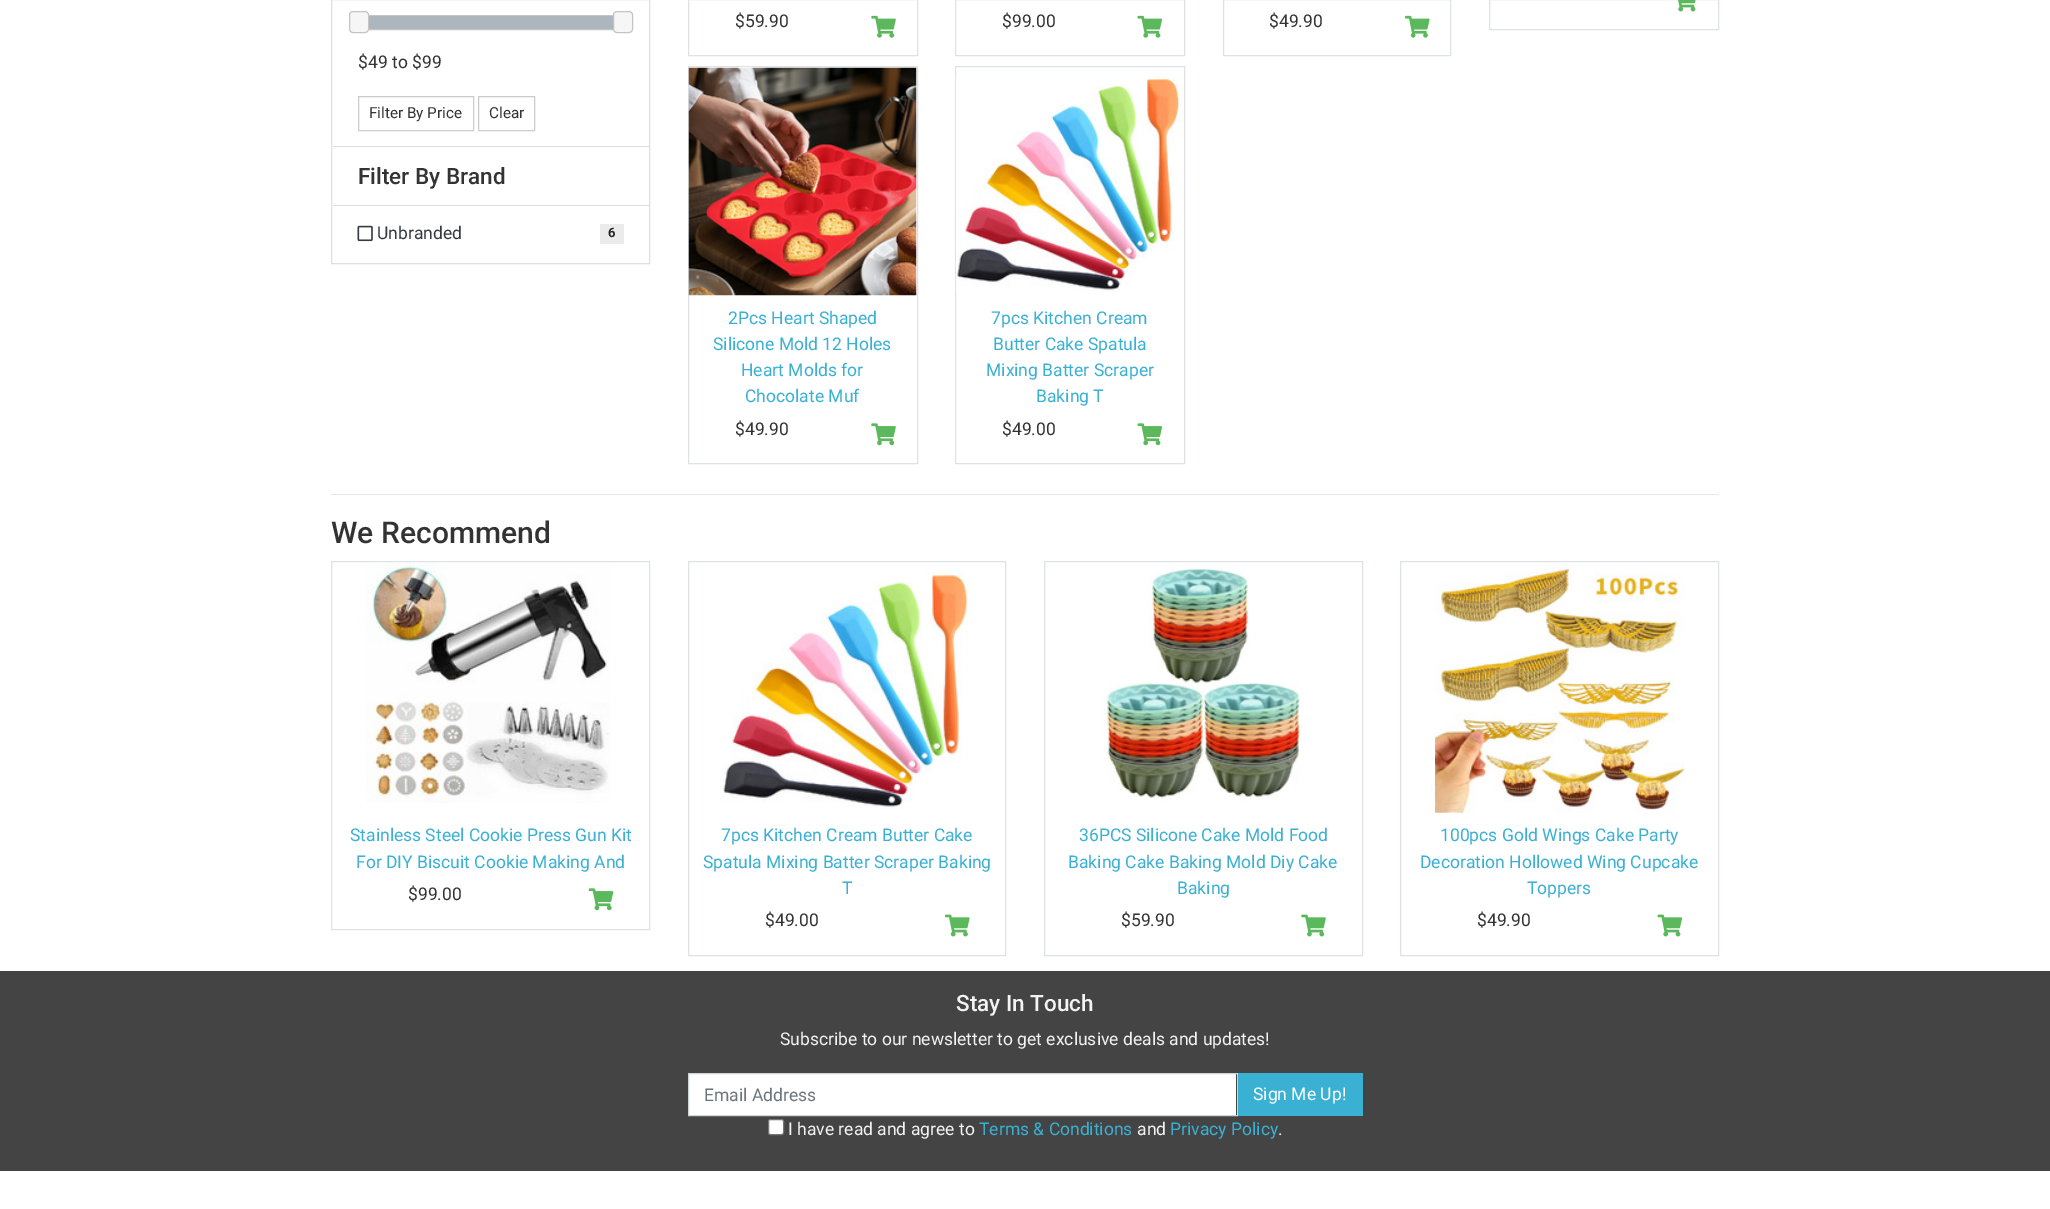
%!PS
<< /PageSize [2050 1209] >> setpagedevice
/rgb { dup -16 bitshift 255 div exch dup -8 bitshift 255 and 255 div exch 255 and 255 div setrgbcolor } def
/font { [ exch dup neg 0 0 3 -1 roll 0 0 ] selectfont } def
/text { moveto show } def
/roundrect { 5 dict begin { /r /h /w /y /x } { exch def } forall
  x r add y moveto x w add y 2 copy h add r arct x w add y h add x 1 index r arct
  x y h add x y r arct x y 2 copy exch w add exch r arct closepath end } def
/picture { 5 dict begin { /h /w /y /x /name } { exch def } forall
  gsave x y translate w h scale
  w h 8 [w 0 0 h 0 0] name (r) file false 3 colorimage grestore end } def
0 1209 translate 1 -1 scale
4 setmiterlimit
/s1 { /Roboto-Regular 17.5 font 16#333333 rgb } def
/s2 { /Roboto-Regular 15.25 font 16#333333 rgb } def
/s3 { /Roboto-Medium 22.5 font 16#333333 rgb } def
/s4 { /Roboto-Regular 17.5 font 16#343A40 rgb } def
/s5 { /Roboto-Bold 13 font 16#212529 rgb } def
/s6 { /Roboto-Regular 17.5 font 16#3AB0D3 rgb } def
/s7 { /Roboto-Medium 30 font 16#333333 rgb } def
/s8 { /Roboto-Medium 22.5 font 16#F3F3F3 rgb } def
/s9 { /Roboto-Regular 17.5 font 16#F3F3F3 rgb } def
/s10 { /Roboto-Regular 17.5 font 16#6C757D rgb } def
/s11 { /Roboto-Regular 17.5 font 16#FFFFFF rgb } def
16#FFFFFF rgb
0 0 2050 1209 rectfill
16#DFDFDF rgb
331.5 -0.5 318 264 rectstroke
16#C5C5C5 rgb
358.5 15.5 265 14 rectstroke
16#F6F6F6 rgb
349.5 11.5 19 21 3.5 roundrect gsave fill grestore
16#C5C5C5 rgb
stroke
16#ADB5BD rgb
369 16 244 13 rectfill
16#F6F6F6 rgb
613.5 11.5 19 21 3.5 roundrect gsave fill grestore
16#C5C5C5 rgb
stroke
s1
($49 to $99) 358 68 text
16#CCCCCC rgb
358.5 96.5 115 34 rectstroke
s2
(Filter By Price) 369 118 text
16#CCCCCC rgb
478.5 96.5 56 34 rectstroke
s2
(Clear) 489 118 text
16#DFDFDF rgb
333 146 316 1 rectfill
s3
(Filter By Brand) 358 184 text
16#DFDFDF rgb
333 205 316 1 rectfill
(pic1.raw) 357 225 16 17 picture
s4
(Unbranded) 377 239 text
16#EBEBEB rgb
600 224 24 20 rectfill
s5
(6) 608 237 text
16#DEE2E6 rgb
688.5 -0.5 229 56 rectstroke
s1
($59.90) 735 27 text
(pic2.raw) 871 15 25 23 picture
16#DEE2E6 rgb
955.5 -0.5 229 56 rectstroke
s1
($99.00) 1002 27 text
(pic3.raw) 1137 15 26 23 picture
16#DEE2E6 rgb
1223.5 -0.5 227 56 rectstroke
s1
($49.90) 1269 27 text
(pic4.raw) 1405 15 25 23 picture
16#DEE2E6 rgb
1489.5 -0.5 229 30 rectstroke
(pic5.raw) 1678 0 18 12 picture
688.5 66.5 229 397 rectstroke
(pic6.raw) 688 67 229 229 picture
s6
(2Pcs Heart Shaped) 728 324 text
(Silicone Mold 12 Holes) 713 350 text
(Heart Molds for) 741 376 text
(Chocolate Muf) 745 402 text
s1
($49.90) 735 435 text
(pic7.raw) 871 423 25 23 picture
16#DEE2E6 rgb
955.5 66.5 229 397 rectstroke
(pic8.raw) 956 77 228 215 picture
s6
(7pcs Kitchen Cream) 991 324 text
(Butter Cake Spatula) 993 350 text
(Mixing Batter Scraper) 986 376 text
(Baking T) 1036 402 text
s1
($49.00) 1002 435 text
(pic9.raw) 1137 423 26 23 picture
16#E6E6E6 rgb
331 494 1388 1 rectfill
s7
(We Recommend) 331 543 text
16#DEE2E6 rgb
331.5 561.5 318 368 rectstroke
(pic10.raw) 366 563 245 240 picture
s6
(Stainless Steel Cookie Press Gun Kit) 350 841 text
(For DIY Biscuit Cookie Making And) 356 868 text
s1
($99.00) 408 900 text
(pic11.raw) 588 888 26 23 picture
16#DEE2E6 rgb
688.5 561.5 317 394 rectstroke
(pic12.raw) 723 572 250 237 picture
s6
(7pcs Kitchen Cream Butter Cake) 721 841 text
(Spatula Mixing Batter Scraper Baking) 703 868 text
(T) 842 894 text
s1
($49.00) 765 926 text
(pic13.raw) 945 914 25 23 picture
16#DEE2E6 rgb
1044.5 561.5 318 394 rectstroke
(pic14.raw) 1103 567 197 234 picture
s6
(36PCS Silicone Cake Mold Food) 1079 841 text
(Baking Cake Baking Mold Diy Cake) 1068 868 text
(Baking) 1177 894 text
s1
($59.90) 1121 926 text
(pic15.raw) 1301 914 25 23 picture
16#DEE2E6 rgb
1400.5 561.5 318 394 rectstroke
(pic16.raw) 1435 563 250 250 picture
s6
(100pcs Gold Wings Cake Party) 1440 841 text
(Decoration Hollowed Wing Cupcake) 1420 868 text
(Toppers) 1527 894 text
s1
($49.90) 1477 926 text
(pic17.raw) 1657 914 26 23 picture
16#444444 rgb
0 971 2050 200 rectfill
s8
(Stay In Touch) 956 1011 text
s9
(Subscribe to our newsletter to get exclusive deals and updates!) 780 1045 text
16#FFFFFF rgb
689 1074 547 41 rectfill
16#CED4DA rgb
688.5 1073.5 549 42 rectstroke
s10
(Email Address) 704 1101 text
16#3AB0D3 rgb
1238 1073 125 43 rectfill
s11
(Sign Me Up!) 1253 1100 text
768.5 1119.5 15 15 2 roundrect gsave fill grestore
16#767676 rgb
stroke
s9
(I have read and agree to) 788 1135 text
s6
(Terms & Conditions) 979 1135 text
s9
(and) 1137 1135 text
s6
(Privacy Policy) 1170 1135 text
s9
(.) 1278 1135 text
showpage
